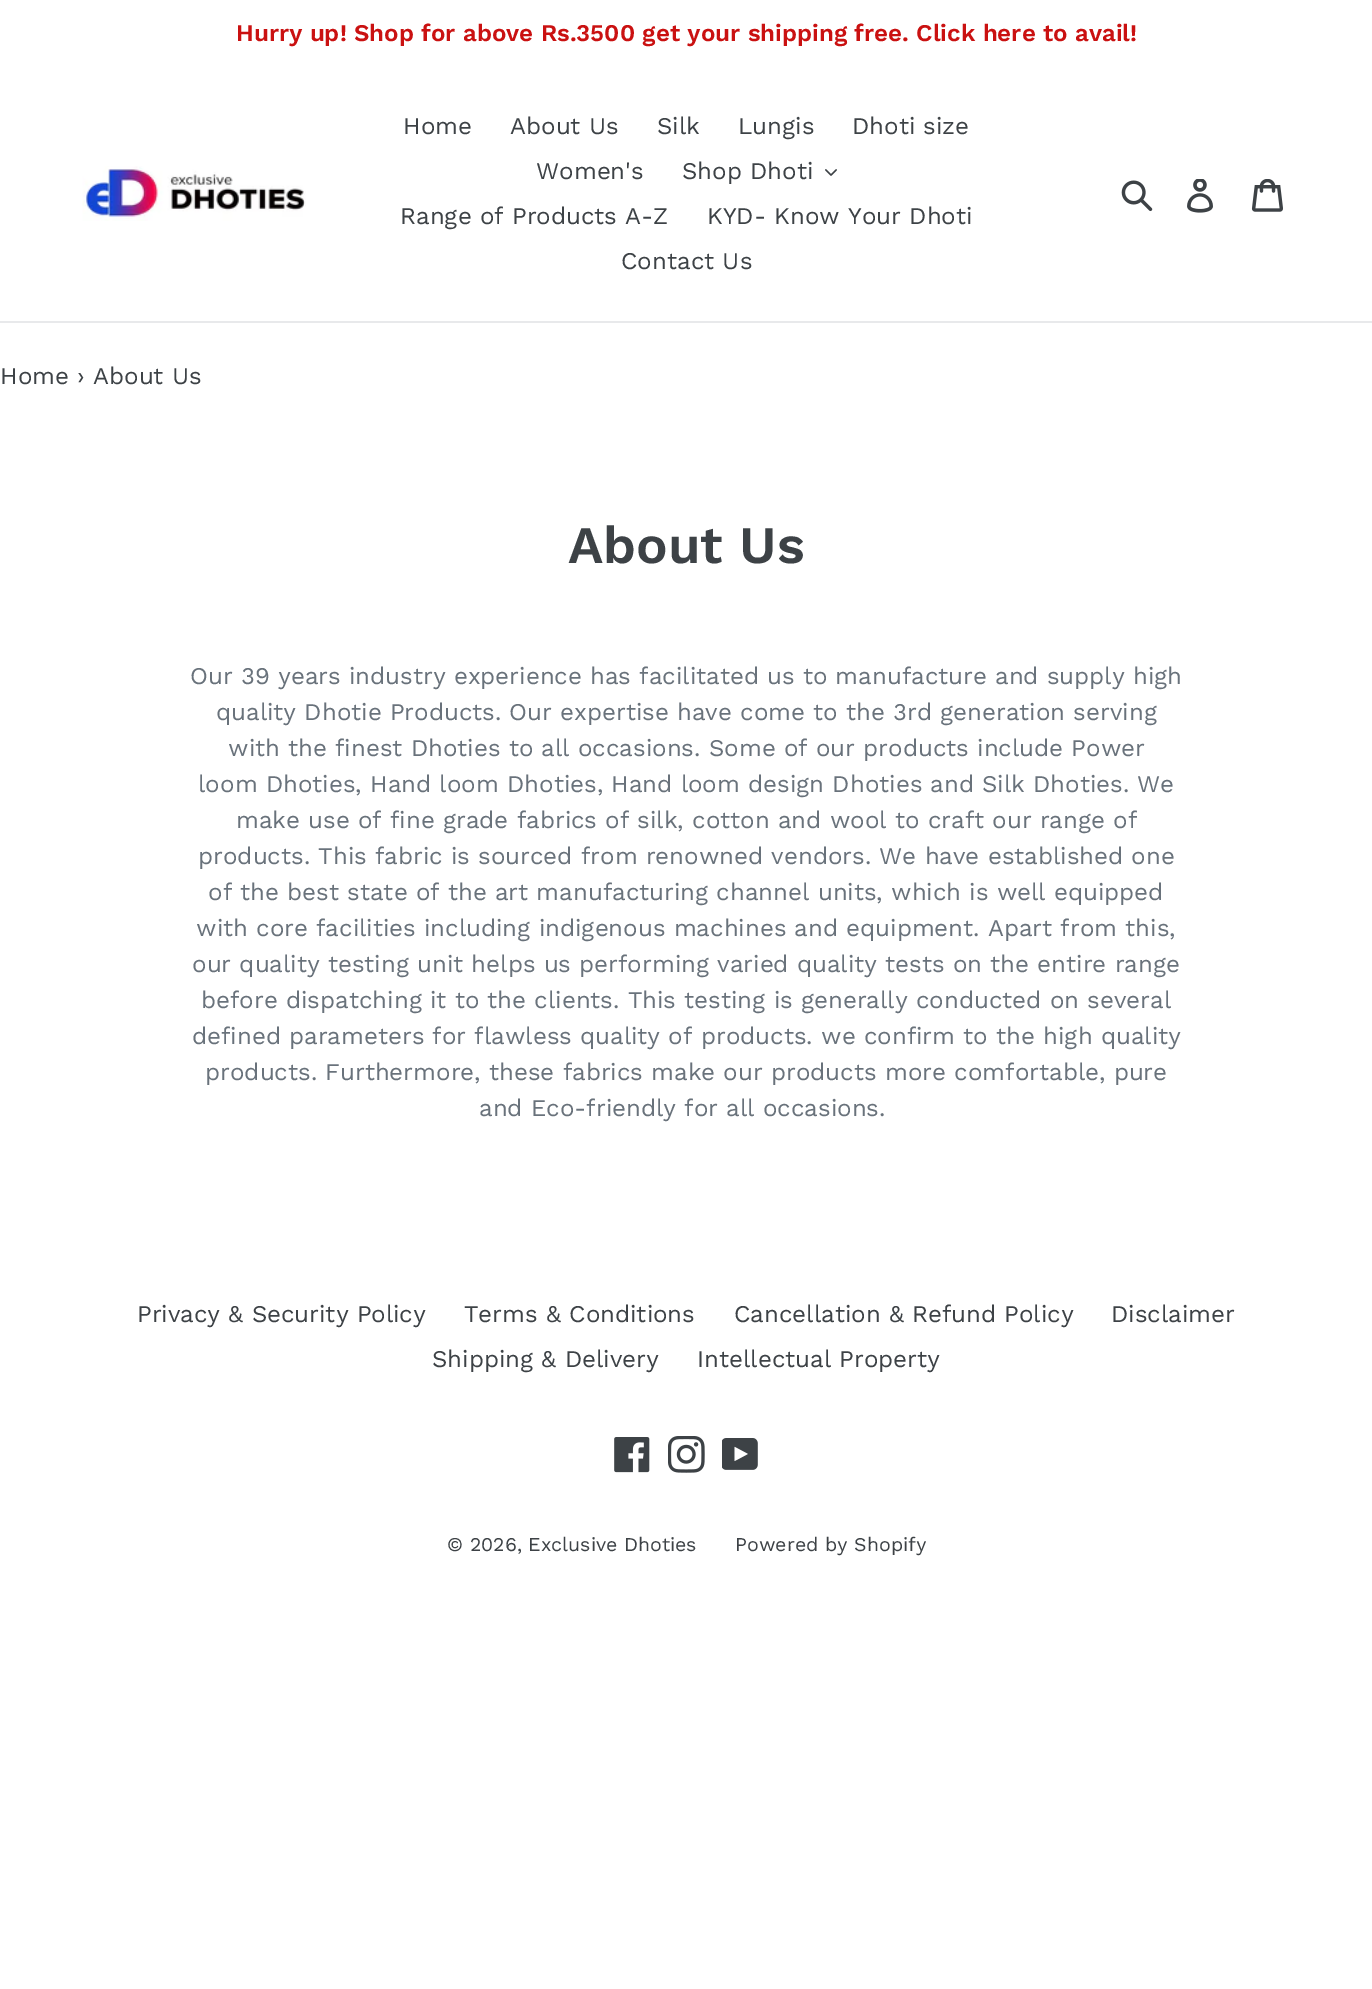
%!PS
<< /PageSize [1372 1989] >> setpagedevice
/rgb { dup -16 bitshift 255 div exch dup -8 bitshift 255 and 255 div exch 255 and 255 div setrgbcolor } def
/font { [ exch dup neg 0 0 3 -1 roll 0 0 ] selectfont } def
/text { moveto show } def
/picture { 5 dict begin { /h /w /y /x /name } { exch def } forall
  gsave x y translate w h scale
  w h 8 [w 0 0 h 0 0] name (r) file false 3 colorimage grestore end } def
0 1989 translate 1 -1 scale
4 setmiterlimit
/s1 { /WorkSans-SemiBold 24 font 16#CA1111 rgb } def
/s2 { /WorkSans-Regular 24 font 16#3D4246 rgb } def
/s3 { /WorkSans-SemiBold 52.5 font 16#3D4246 rgb } def
/s4 { /WorkSans-Regular 24 font 16#69727B rgb } def
/s5 { /WorkSans-Regular 19.5 font 16#3D4246 rgb } def
16#FFFFFF rgb
0 0 1372 1989 rectfill
s1
(Hurry up! Shop for above Rs.3500 get your shipping free. Click here to avail!) 236 41 text
16#E8E9EB rgb
0 321 1372 2 rectfill
(pic1.raw) 82 166 224 55 picture
s2
(Home) 403 134 text
(About Us) 510 134 text
(Silk) 657 134 text
(Lungis) 738 134 text
(Dhoti size) 852 134 text
(Women's) 536 179 text
(Shop Dhoti) 682 179 text
(pic2.raw) 825 169 12 7 picture
(Range of Products A-Z) 400 224 text
(KYD- Know Your Dhoti) 707 224 text
(Contact Us) 621 269 text
(pic3.raw) 1121 180 32 32 picture
(pic4.raw) 1187 179 26 34 picture
(pic5.raw) 1251 179 32 33 picture
(Home › About Us) 0 384 text
s3
(About Us) 568 563 text
s4
(Our 39 years industry experience has facilitated us to manufacture and supply high) 190 684 text
(quality Dhotie Products. Our expertise have come to the 3rd generation serving) 216 720 text
(with the finest Dhoties to all occasions. Some of our products include Power) 228 756 text
(loom Dhoties, Hand loom Dhoties, Hand loom design Dhoties and Silk Dhoties. We) 198 792 text
(make use of fine grade fabrics of silk, cotton and wool to craft our range of) 236 828 text
(products. This fabric is sourced from renowned vendors. We have established one) 198 864 text
(of the best state of the art manufacturing channel units, which is well equipped) 208 900 text
(with core facilities including indigenous machines and equipment. Apart from this,) 196 936 text
(our quality testing unit helps us performing varied quality tests on the entire range) 192 972 text
(before dispatching it to the clients. This testing is generally conducted on several) 201 1008 text
(defined parameters for flawless quality of products. we confirm to the high quality) 192 1044 text
(products. Furthermore, these fabrics make our products more comfortable, pure) 205 1080 text
(and Eco-friendly for all occasions.) 479 1116 text
s2
(Privacy & Security Policy) 137 1322 text
(Terms & Conditions) 464 1322 text
(Cancellation & Refund Policy) 734 1322 text
(Disclaimer) 1111 1322 text
(Shipping & Delivery) 432 1367 text
(Intellectual Property) 697 1367 text
(pic6.raw) 614 1437 36 36 picture
(pic7.raw) 668 1436 37 37 picture
(pic8.raw) 722 1438 36 32 picture
s5
(© 2026, Exclusive Dhoties) 447 1551 text
(Powered by Shopify) 735 1551 text
showpage
